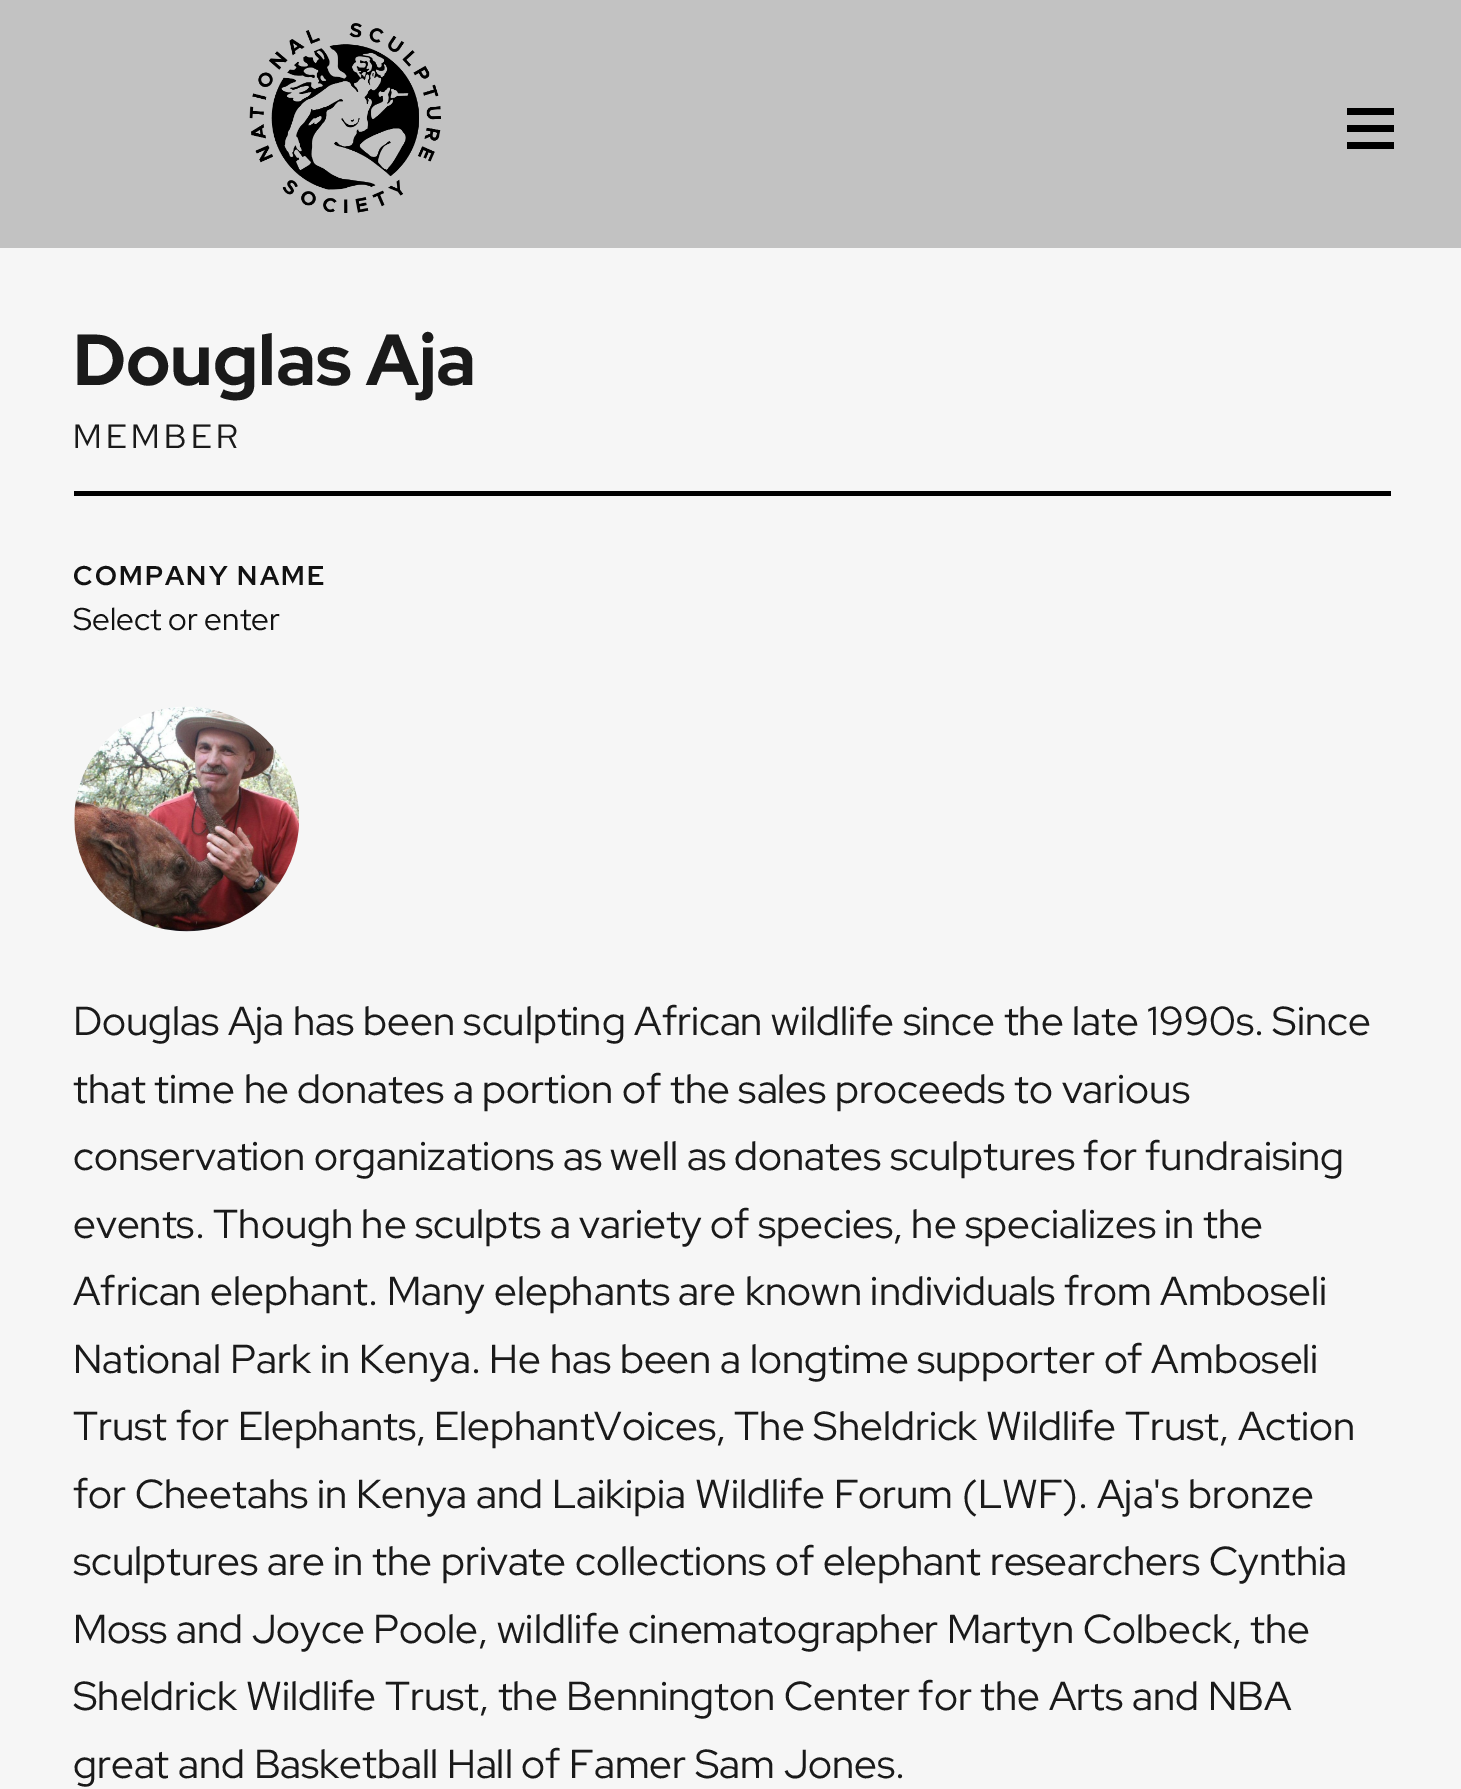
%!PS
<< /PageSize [1461 1789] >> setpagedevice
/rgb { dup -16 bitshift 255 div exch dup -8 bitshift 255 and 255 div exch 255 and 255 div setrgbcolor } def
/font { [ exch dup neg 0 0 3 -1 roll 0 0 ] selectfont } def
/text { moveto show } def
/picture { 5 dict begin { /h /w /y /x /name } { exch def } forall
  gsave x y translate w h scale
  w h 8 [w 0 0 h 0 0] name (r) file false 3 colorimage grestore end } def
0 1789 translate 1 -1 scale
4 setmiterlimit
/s1 { /RedHatDisplay-ExtraBold 72 font 16#1A1A1A rgb } def
/s2 { /RedHatDisplay-Regular 31.5 font 16#121212 rgb } def
/s3 { /RedHatDisplay-Regular 40.5 font 16#1A1A1A rgb } def
16#F6F6F6 rgb
0 0 1461 1789 rectfill
16#C2C2C2 rgb
0 0 1461 248 rectfill
(pic1.raw) 249 23 192 190 picture
16#000000 rgb
1347 132 moveto 1394 132 lineto 1394 125 lineto 1347 125 lineto closepath 1347 149 moveto 1394 149 lineto 1394 142 lineto 1347 142 lineto closepath 1347 108 moveto 1347 115 lineto 1394 115 lineto 1394 108 lineto closepath fill
74 491 1317 5 rectfill
s1
(Douglas Aja) 73 385 text
/RedHatDisplay-Regular 33.75 font
73 448 moveto 4.5 0 (MEMBER) ashow
/RedHatDisplay-Bold 27 font
16#121212 rgb
73 585 moveto 2.25 0 (COMPANY NAME) ashow
s2
(Select or enter) 73 630 text
(pic2.raw) 74 706 225 226 picture
s3
(Douglas Aja has been sculpting African wildlife since the late 1990s. Since) 73 1035 text
(that time he donates a portion of the sales proceeds to various) 73 1103 text
(conservation organizations as well as donates sculptures for fundraising) 73 1170 text
(events. Though he sculpts a variety of species, he specializes in the) 73 1238 text
(African elephant. Many elephants are known individuals from Amboseli) 73 1305 text
(National Park in Kenya. He has been a longtime supporter of Amboseli) 73 1373 text
(Trust for Elephants, ElephantVoices, The Sheldrick Wildlife Trust, Action) 73 1440 text
(for Cheetahs in Kenya and Laikipia Wildlife Forum \(LWF\). Aja's bronze) 73 1508 text
(sculptures are in the private collections of elephant researchers Cynthia) 73 1575 text
(Moss and Joyce Poole, wildlife cinematographer Martyn Colbeck, the) 73 1643 text
(Sheldrick Wildlife Trust, the Bennington Center for the Arts and NBA) 73 1710 text
(great and Basketball Hall of Famer Sam Jones.) 73 1778 text
showpage
